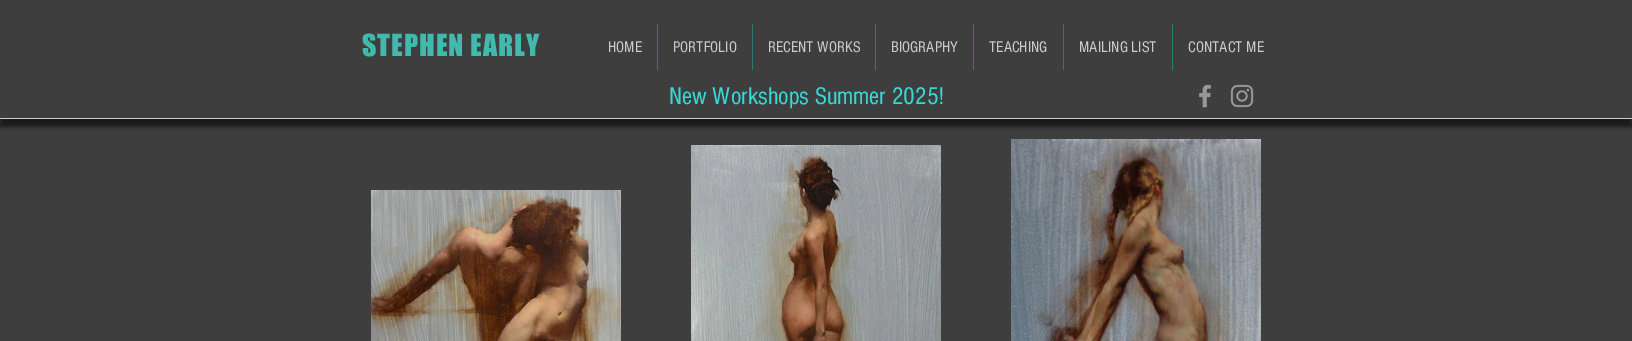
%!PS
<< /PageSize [1632 341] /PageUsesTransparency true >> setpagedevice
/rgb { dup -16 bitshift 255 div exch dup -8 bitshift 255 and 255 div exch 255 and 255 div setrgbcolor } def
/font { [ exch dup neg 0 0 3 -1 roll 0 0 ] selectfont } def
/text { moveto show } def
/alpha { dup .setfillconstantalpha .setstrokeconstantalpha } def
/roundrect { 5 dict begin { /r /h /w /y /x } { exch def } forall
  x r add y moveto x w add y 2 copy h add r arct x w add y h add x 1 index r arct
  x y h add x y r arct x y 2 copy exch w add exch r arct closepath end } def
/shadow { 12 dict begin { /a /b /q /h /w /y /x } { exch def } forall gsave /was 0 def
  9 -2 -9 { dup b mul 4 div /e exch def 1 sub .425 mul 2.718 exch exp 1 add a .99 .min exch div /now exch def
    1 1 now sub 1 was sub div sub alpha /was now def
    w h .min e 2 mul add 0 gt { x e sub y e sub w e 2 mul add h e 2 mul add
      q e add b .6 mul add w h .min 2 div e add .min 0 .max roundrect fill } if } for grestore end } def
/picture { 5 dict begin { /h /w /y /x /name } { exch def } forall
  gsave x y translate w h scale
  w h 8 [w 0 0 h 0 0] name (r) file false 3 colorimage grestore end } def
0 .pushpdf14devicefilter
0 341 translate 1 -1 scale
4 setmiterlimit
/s1 { /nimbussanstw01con-Regular 16 font 16#CCCCCC rgb } def
/s2 { /nimbussanstw01con-Regular 25 font 16#36D9D8 rgb } def
16#3E3E3E rgb
0 0 1632 341 rectfill
gsave
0 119 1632 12 rectclip
16#000000 rgb
0 8 1632 119 0 2 0.6 shadow
grestore
16#CCCCCC rgb
0 118 1632 1 rectfill
/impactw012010-Regular 28 font
16#41BAAE rgb
362 56 moveto 1 0 (STEPHEN EARLY) ashow
s1
(HOME) 608 52 text
16#2B7C74 rgb
657 24 1 46 rectfill
s1
(PORTFOLIO) 673 52 text
16#2B7C74 rgb
752 24 1 46 rectfill
s1
(RECENT WORKS) 768 52 text
16#2B7C74 rgb
875 24 1 46 rectfill
s1
(BIOGRAPHY) 891 52 text
16#2B7C74 rgb
973 24 1 46 rectfill
s1
(TEACHING) 989 52 text
16#2B7C74 rgb
1063 24 1 46 rectfill
s1
(MAILING LIST) 1079 52 text
16#2B7C74 rgb
1172 24 1 46 rectfill
s1
(CONTACT ME) 1188 52 text
s2
(New Workshops Summer 2025!) 669 104 text
(pic1.raw) 1199 84 12 24 picture
(pic2.raw) 1230 84 24 24 picture
(pic3.raw) 371 190 250 151 picture
(pic4.raw) 691 145 250 196 picture
(pic5.raw) 1011 139 250 202 picture
.poppdf14devicefilter showpage
